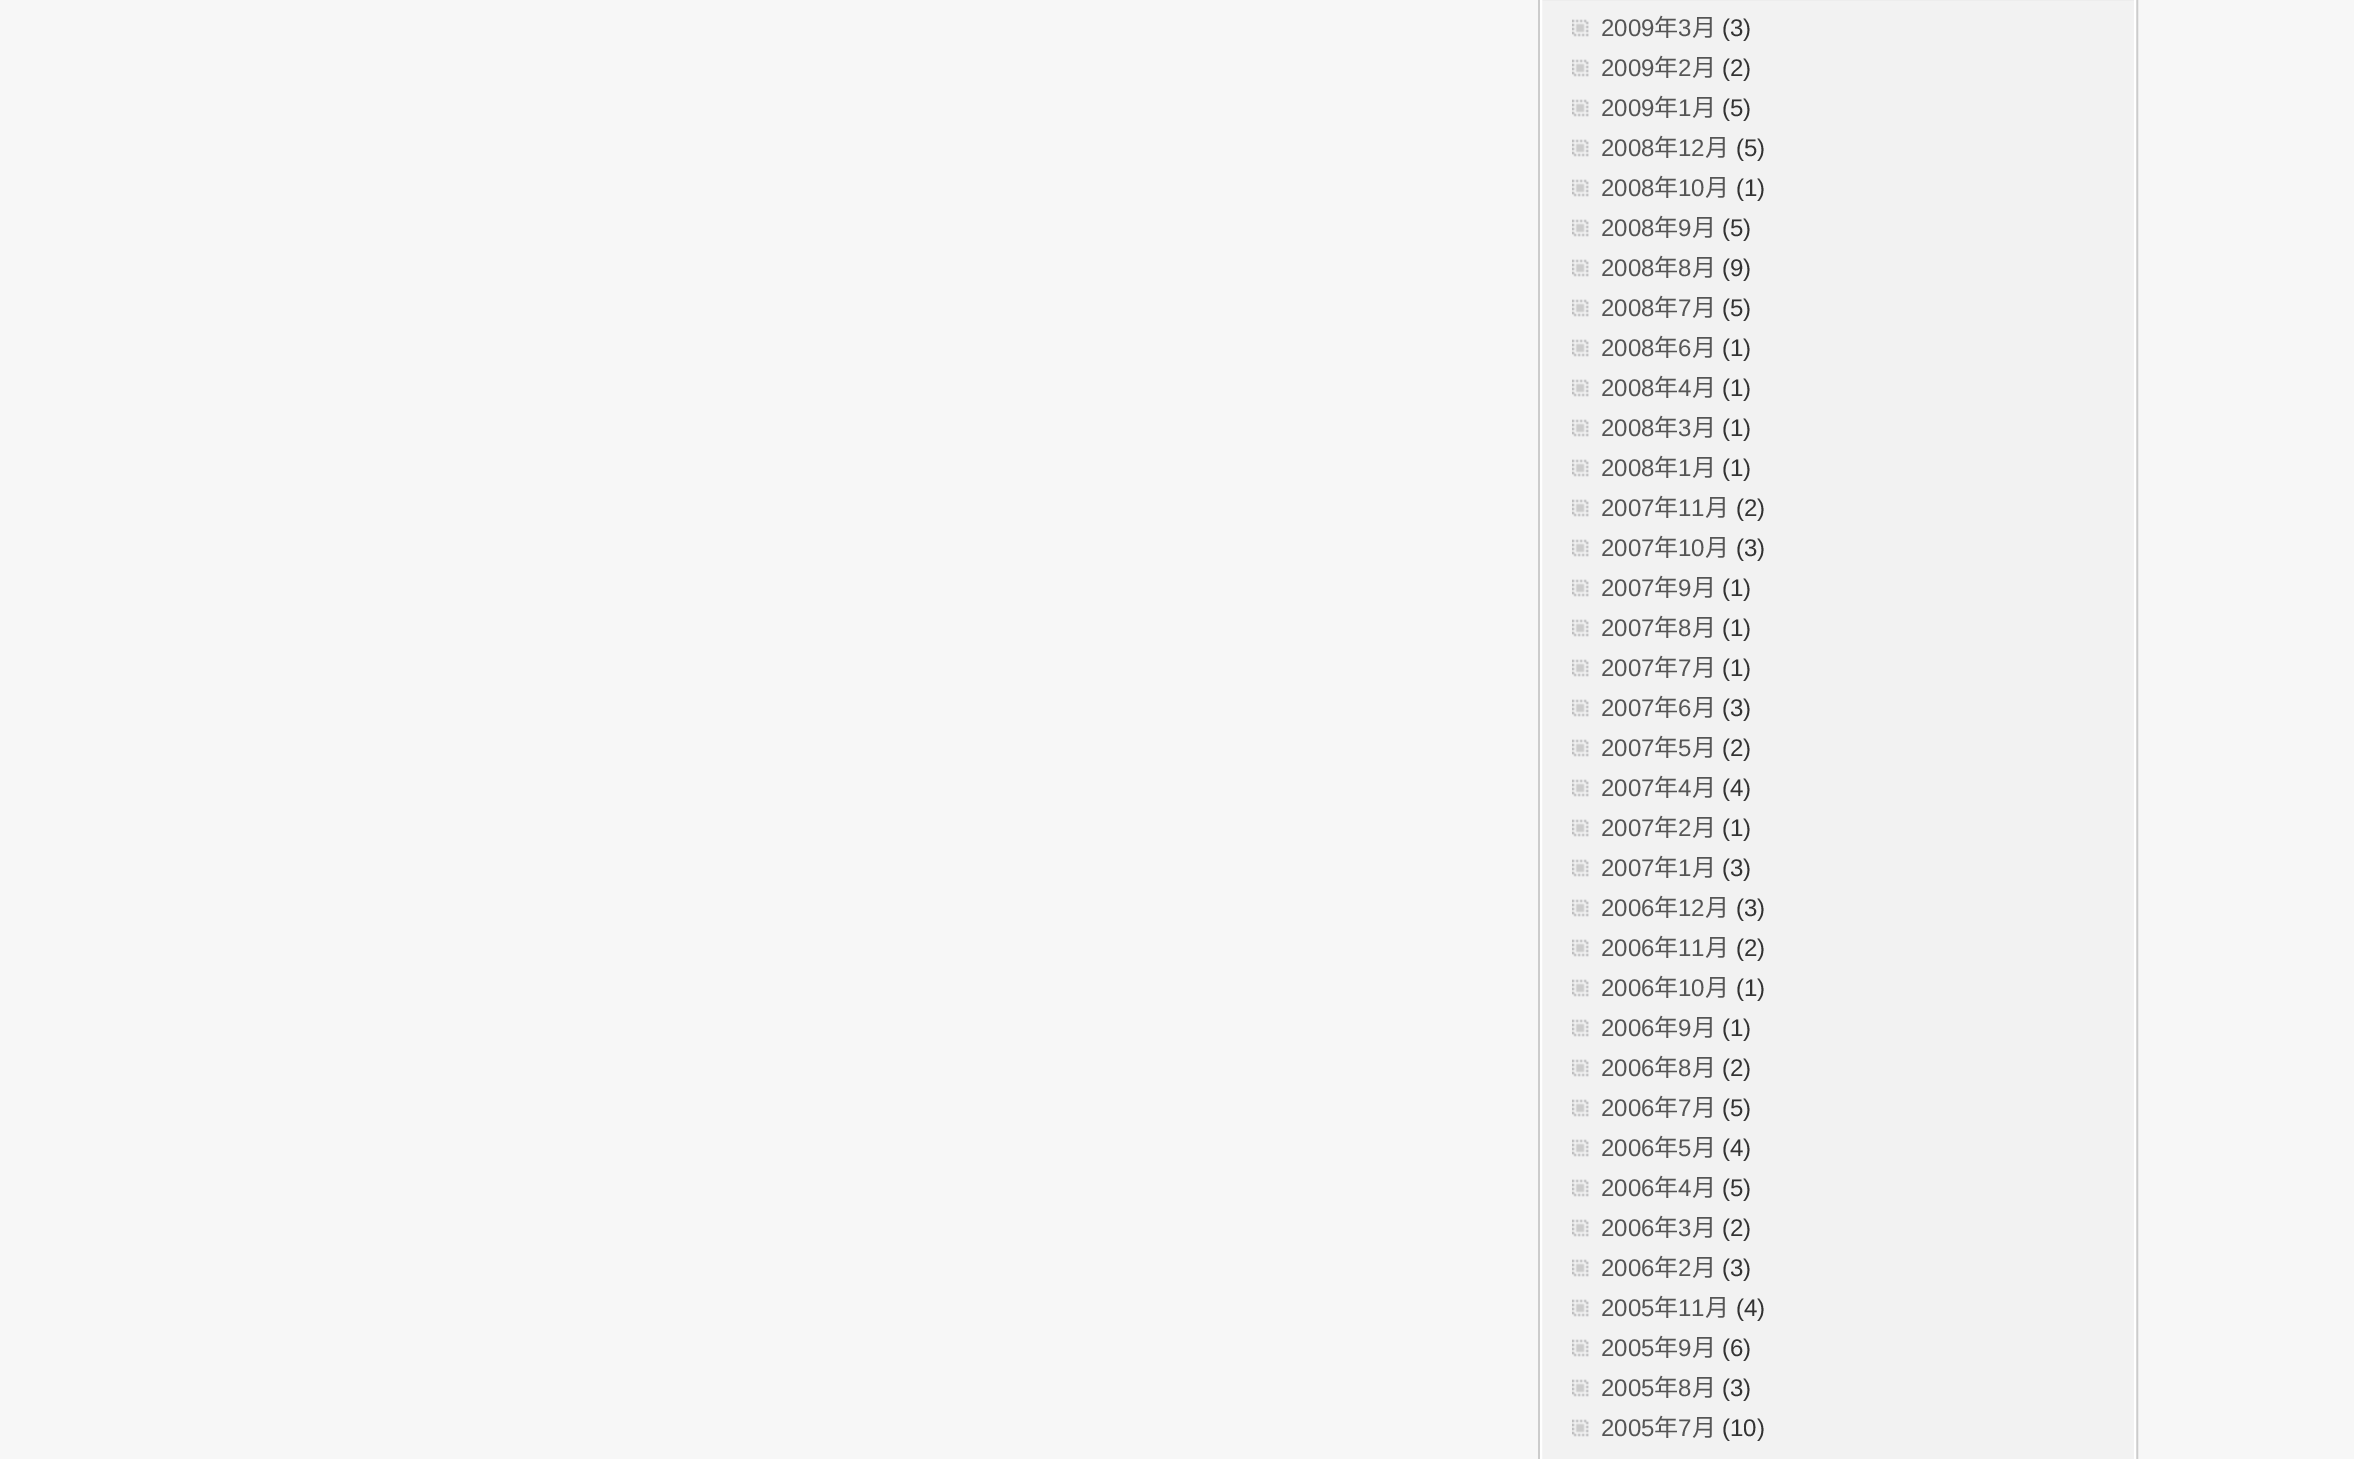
%!PS
<< /PageSize [2354 1459] >> setpagedevice
/rgb { dup -16 bitshift 255 div exch dup -8 bitshift 255 and 255 div exch 255 and 255 div setrgbcolor } def
/font { [ exch dup neg 0 0 3 -1 roll 0 0 ] selectfont } def
/text { moveto show } def
/picture { 5 dict begin { /h /w /y /x /name } { exch def } forall
  gsave x y translate w h scale
  w h 8 [w 0 0 h 0 0] name (r) file false 3 colorimage grestore end } def
0 1459 translate 1 -1 scale
4 setmiterlimit
/s1 { /LiberationSans-Regular 24 font 16#555555 rgb } def
/s2 { /NotoSansCJKSC-Regular 24 font 16#555555 rgb } def
/s3 { /LiberationSans-Regular 24 font 16#333333 rgb } def
16#F7F7F7 rgb
0 0 2354 1459 rectfill
16#F2F2F2 rgb
1542 0 592 1459 rectfill
16#CCCCCC rgb
2 setlinewidth
1539 -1 598 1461 rectstroke
16#FFFFFF rgb
1541 -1 594 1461 rectstroke
(pic1.raw) 1572 19 17 18 picture
s1
(2009) 1601 36 text
s2
(年) 1654 36 text
s1
(3) 1678 36 text
s2
(月) 1692 36 text
s3
(\(3\)) 1722 36 text
(pic1.raw) 1572 59 17 18 picture
s1
(2009) 1601 76 text
s2
(年) 1654 76 text
s1
(2) 1678 76 text
s2
(月) 1692 76 text
s3
(\(2\)) 1722 76 text
(pic1.raw) 1572 99 17 18 picture
s1
(2009) 1601 116 text
s2
(年) 1654 116 text
s1
(1) 1678 116 text
s2
(月) 1692 116 text
s3
(\(5\)) 1722 116 text
(pic1.raw) 1572 139 17 18 picture
s1
(2008) 1601 156 text
s2
(年) 1654 156 text
s1
(12) 1678 156 text
s2
(月) 1705 156 text
s3
(\(5\)) 1736 156 text
(pic1.raw) 1572 179 17 18 picture
s1
(2008) 1601 196 text
s2
(年) 1654 196 text
s1
(10) 1678 196 text
s2
(月) 1705 196 text
s3
(\(1\)) 1736 196 text
(pic1.raw) 1572 219 17 18 picture
s1
(2008) 1601 236 text
s2
(年) 1654 236 text
s1
(9) 1678 236 text
s2
(月) 1692 236 text
s3
(\(5\)) 1722 236 text
(pic1.raw) 1572 259 17 18 picture
s1
(2008) 1601 276 text
s2
(年) 1654 276 text
s1
(8) 1678 276 text
s2
(月) 1692 276 text
s3
(\(9\)) 1722 276 text
(pic1.raw) 1572 299 17 18 picture
s1
(2008) 1601 316 text
s2
(年) 1654 316 text
s1
(7) 1678 316 text
s2
(月) 1692 316 text
s3
(\(5\)) 1722 316 text
(pic1.raw) 1572 339 17 18 picture
s1
(2008) 1601 356 text
s2
(年) 1654 356 text
s1
(6) 1678 356 text
s2
(月) 1692 356 text
s3
(\(1\)) 1722 356 text
(pic1.raw) 1572 379 17 18 picture
s1
(2008) 1601 396 text
s2
(年) 1654 396 text
s1
(4) 1678 396 text
s2
(月) 1692 396 text
s3
(\(1\)) 1722 396 text
(pic1.raw) 1572 419 17 18 picture
s1
(2008) 1601 436 text
s2
(年) 1654 436 text
s1
(3) 1678 436 text
s2
(月) 1692 436 text
s3
(\(1\)) 1722 436 text
(pic1.raw) 1572 459 17 18 picture
s1
(2008) 1601 476 text
s2
(年) 1654 476 text
s1
(1) 1678 476 text
s2
(月) 1692 476 text
s3
(\(1\)) 1722 476 text
(pic1.raw) 1572 499 17 18 picture
s1
(2007) 1601 516 text
s2
(年) 1654 516 text
s1
(11) 1678 516 text
s2
(月) 1705 516 text
s3
(\(2\)) 1736 516 text
(pic1.raw) 1572 539 17 18 picture
s1
(2007) 1601 556 text
s2
(年) 1654 556 text
s1
(10) 1678 556 text
s2
(月) 1705 556 text
s3
(\(3\)) 1736 556 text
(pic1.raw) 1572 579 17 18 picture
s1
(2007) 1601 596 text
s2
(年) 1654 596 text
s1
(9) 1678 596 text
s2
(月) 1692 596 text
s3
(\(1\)) 1722 596 text
(pic1.raw) 1572 619 17 18 picture
s1
(2007) 1601 636 text
s2
(年) 1654 636 text
s1
(8) 1678 636 text
s2
(月) 1692 636 text
s3
(\(1\)) 1722 636 text
(pic1.raw) 1572 659 17 18 picture
s1
(2007) 1601 676 text
s2
(年) 1654 676 text
s1
(7) 1678 676 text
s2
(月) 1692 676 text
s3
(\(1\)) 1722 676 text
(pic1.raw) 1572 699 17 18 picture
s1
(2007) 1601 716 text
s2
(年) 1654 716 text
s1
(6) 1678 716 text
s2
(月) 1692 716 text
s3
(\(3\)) 1722 716 text
(pic1.raw) 1572 739 17 18 picture
s1
(2007) 1601 756 text
s2
(年) 1654 756 text
s1
(5) 1678 756 text
s2
(月) 1692 756 text
s3
(\(2\)) 1722 756 text
(pic1.raw) 1572 779 17 18 picture
s1
(2007) 1601 796 text
s2
(年) 1654 796 text
s1
(4) 1678 796 text
s2
(月) 1692 796 text
s3
(\(4\)) 1722 796 text
(pic1.raw) 1572 819 17 18 picture
s1
(2007) 1601 836 text
s2
(年) 1654 836 text
s1
(2) 1678 836 text
s2
(月) 1692 836 text
s3
(\(1\)) 1722 836 text
(pic1.raw) 1572 859 17 18 picture
s1
(2007) 1601 876 text
s2
(年) 1654 876 text
s1
(1) 1678 876 text
s2
(月) 1692 876 text
s3
(\(3\)) 1722 876 text
(pic1.raw) 1572 899 17 18 picture
s1
(2006) 1601 916 text
s2
(年) 1654 916 text
s1
(12) 1678 916 text
s2
(月) 1705 916 text
s3
(\(3\)) 1736 916 text
(pic1.raw) 1572 939 17 18 picture
s1
(2006) 1601 956 text
s2
(年) 1654 956 text
s1
(11) 1678 956 text
s2
(月) 1705 956 text
s3
(\(2\)) 1736 956 text
(pic1.raw) 1572 979 17 18 picture
s1
(2006) 1601 996 text
s2
(年) 1654 996 text
s1
(10) 1678 996 text
s2
(月) 1705 996 text
s3
(\(1\)) 1736 996 text
(pic1.raw) 1572 1019 17 18 picture
s1
(2006) 1601 1036 text
s2
(年) 1654 1036 text
s1
(9) 1678 1036 text
s2
(月) 1692 1036 text
s3
(\(1\)) 1722 1036 text
(pic1.raw) 1572 1059 17 18 picture
s1
(2006) 1601 1076 text
s2
(年) 1654 1076 text
s1
(8) 1678 1076 text
s2
(月) 1692 1076 text
s3
(\(2\)) 1722 1076 text
(pic1.raw) 1572 1099 17 18 picture
s1
(2006) 1601 1116 text
s2
(年) 1654 1116 text
s1
(7) 1678 1116 text
s2
(月) 1692 1116 text
s3
(\(5\)) 1722 1116 text
(pic1.raw) 1572 1139 17 18 picture
s1
(2006) 1601 1156 text
s2
(年) 1654 1156 text
s1
(5) 1678 1156 text
s2
(月) 1692 1156 text
s3
(\(4\)) 1722 1156 text
(pic1.raw) 1572 1179 17 18 picture
s1
(2006) 1601 1196 text
s2
(年) 1654 1196 text
s1
(4) 1678 1196 text
s2
(月) 1692 1196 text
s3
(\(5\)) 1722 1196 text
(pic1.raw) 1572 1219 17 18 picture
s1
(2006) 1601 1236 text
s2
(年) 1654 1236 text
s1
(3) 1678 1236 text
s2
(月) 1692 1236 text
s3
(\(2\)) 1722 1236 text
(pic1.raw) 1572 1259 17 18 picture
s1
(2006) 1601 1276 text
s2
(年) 1654 1276 text
s1
(2) 1678 1276 text
s2
(月) 1692 1276 text
s3
(\(3\)) 1722 1276 text
(pic1.raw) 1572 1299 17 18 picture
s1
(2005) 1601 1316 text
s2
(年) 1654 1316 text
s1
(11) 1678 1316 text
s2
(月) 1705 1316 text
s3
(\(4\)) 1736 1316 text
(pic1.raw) 1572 1339 17 18 picture
s1
(2005) 1601 1356 text
s2
(年) 1654 1356 text
s1
(9) 1678 1356 text
s2
(月) 1692 1356 text
s3
(\(6\)) 1722 1356 text
(pic1.raw) 1572 1379 17 18 picture
s1
(2005) 1601 1396 text
s2
(年) 1654 1396 text
s1
(8) 1678 1396 text
s2
(月) 1692 1396 text
s3
(\(3\)) 1722 1396 text
(pic1.raw) 1572 1419 17 18 picture
s1
(2005) 1601 1436 text
s2
(年) 1654 1436 text
s1
(7) 1678 1436 text
s2
(月) 1692 1436 text
s3
(\(10\)) 1722 1436 text
showpage
